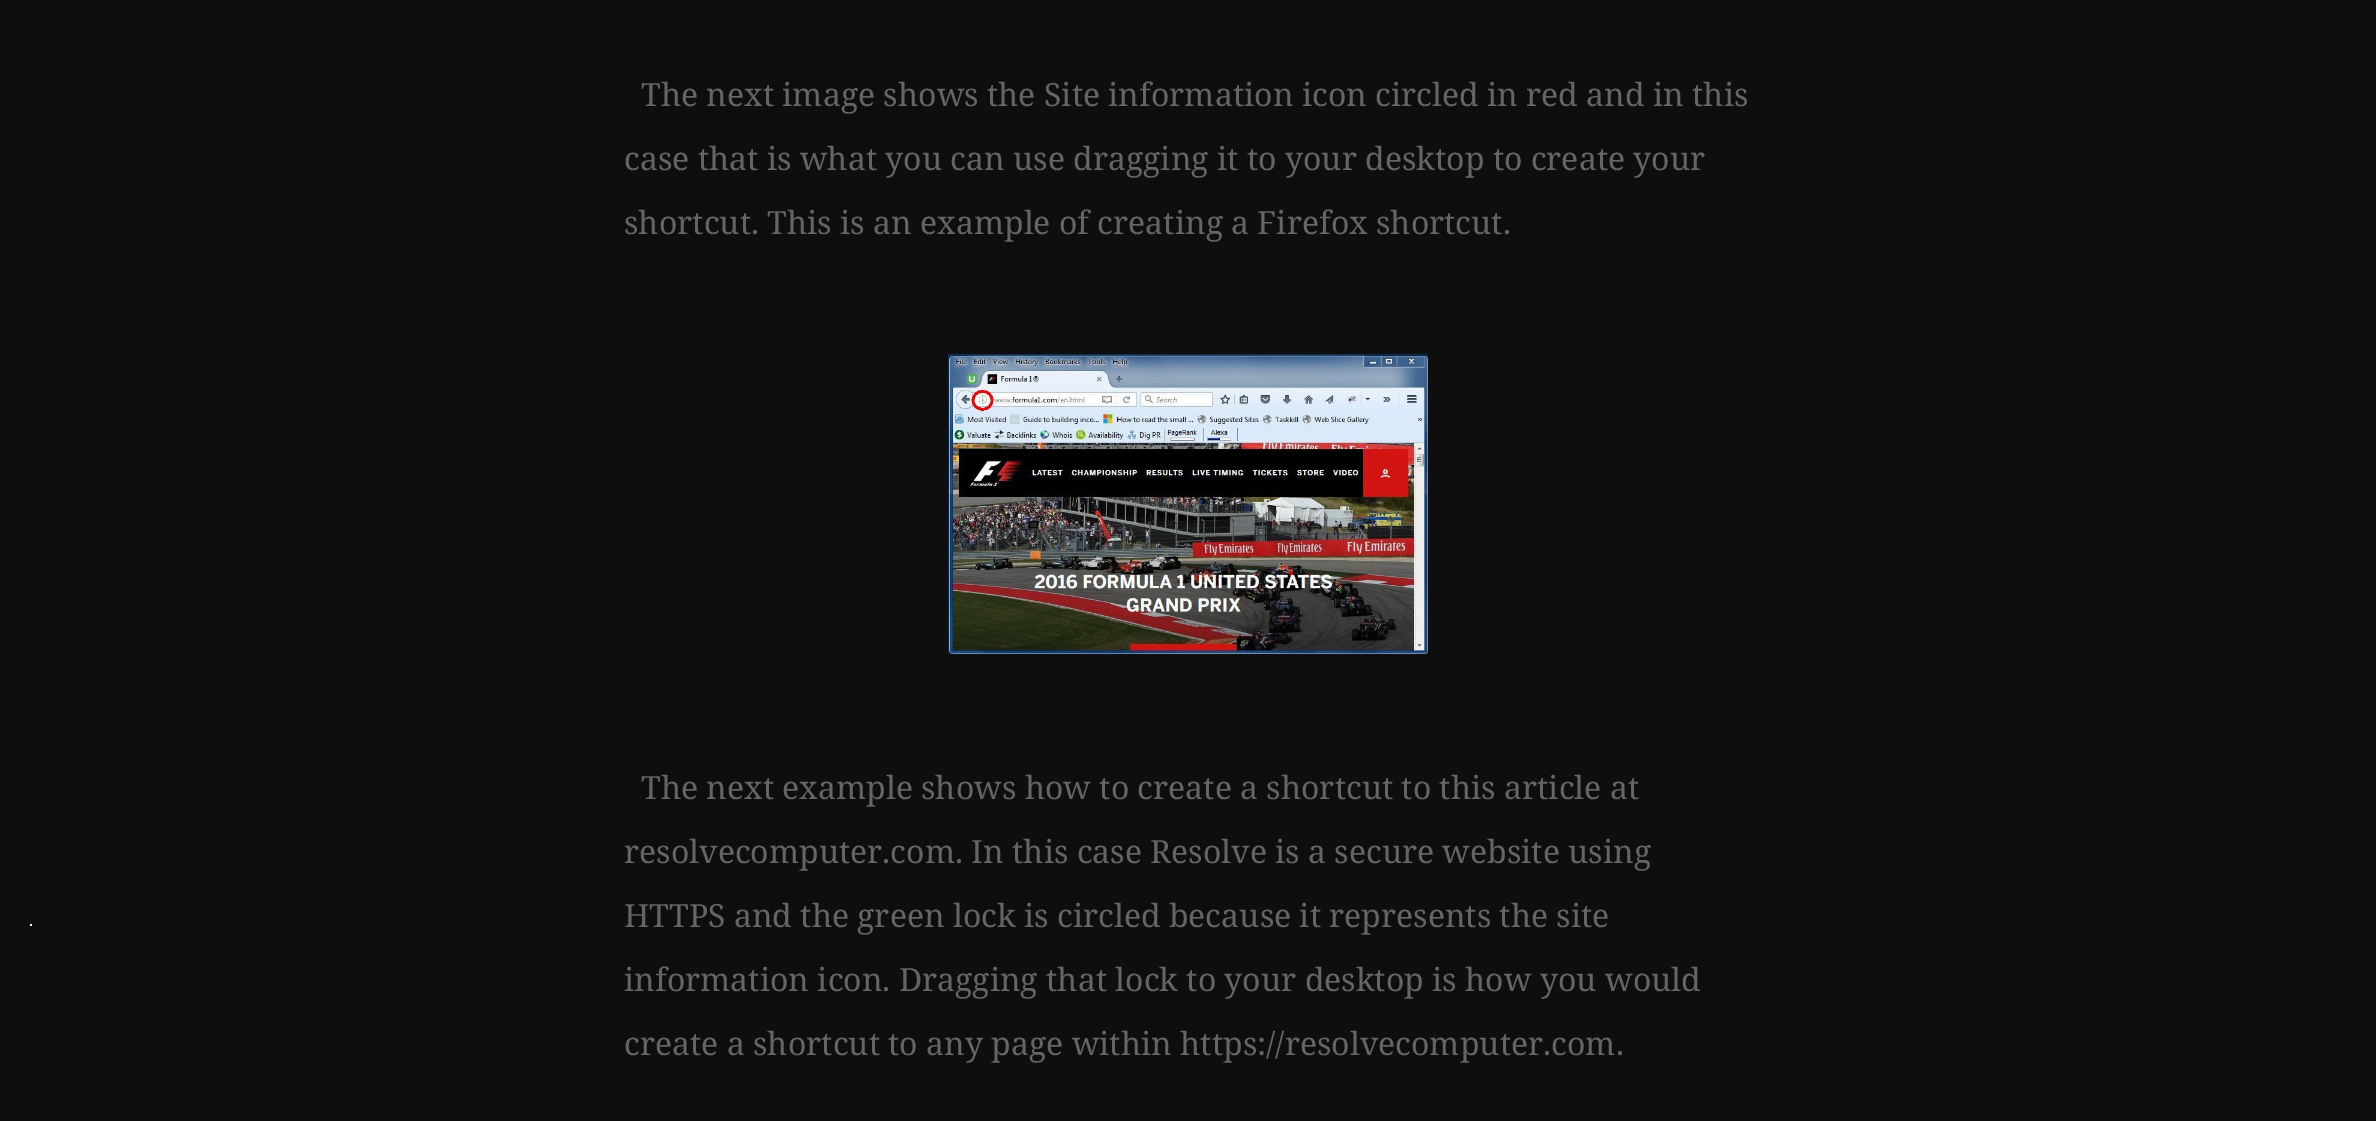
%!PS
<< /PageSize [2376 1121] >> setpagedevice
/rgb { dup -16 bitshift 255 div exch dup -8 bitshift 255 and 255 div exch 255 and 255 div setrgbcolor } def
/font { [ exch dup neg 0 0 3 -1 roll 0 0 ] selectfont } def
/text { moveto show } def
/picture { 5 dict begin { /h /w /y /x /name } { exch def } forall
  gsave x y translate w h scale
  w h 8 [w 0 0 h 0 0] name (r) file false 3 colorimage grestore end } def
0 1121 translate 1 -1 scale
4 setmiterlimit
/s1 { /NotoSerif-Regular 32 font 16#656565 rgb } def
16#0E0E0E rgb
0 0 2376 1121 rectfill
16#FFFFFF rgb
30 924 2 2 rectfill
s1
(The next image shows the Site information icon circled in red and in this) 641 106 text
(case that is what you can use dragging it to your desktop to create your) 624 170 text
(shortcut. This is an example of creating a Firefox shortcut.) 624 234 text
(pic1.raw) 948 354 480 300 picture
(The next example shows how to create a shortcut to this article at) 641 799 text
(resolvecomputer.com. In this case Resolve is a secure website using) 624 863 text
(HTTPS and the green lock is circled because it represents the site) 624 927 text
(information icon. Dragging that lock to your desktop is how you would) 624 991 text
(create a shortcut to any page within https://resolvecomputer.com.) 624 1055 text
showpage
